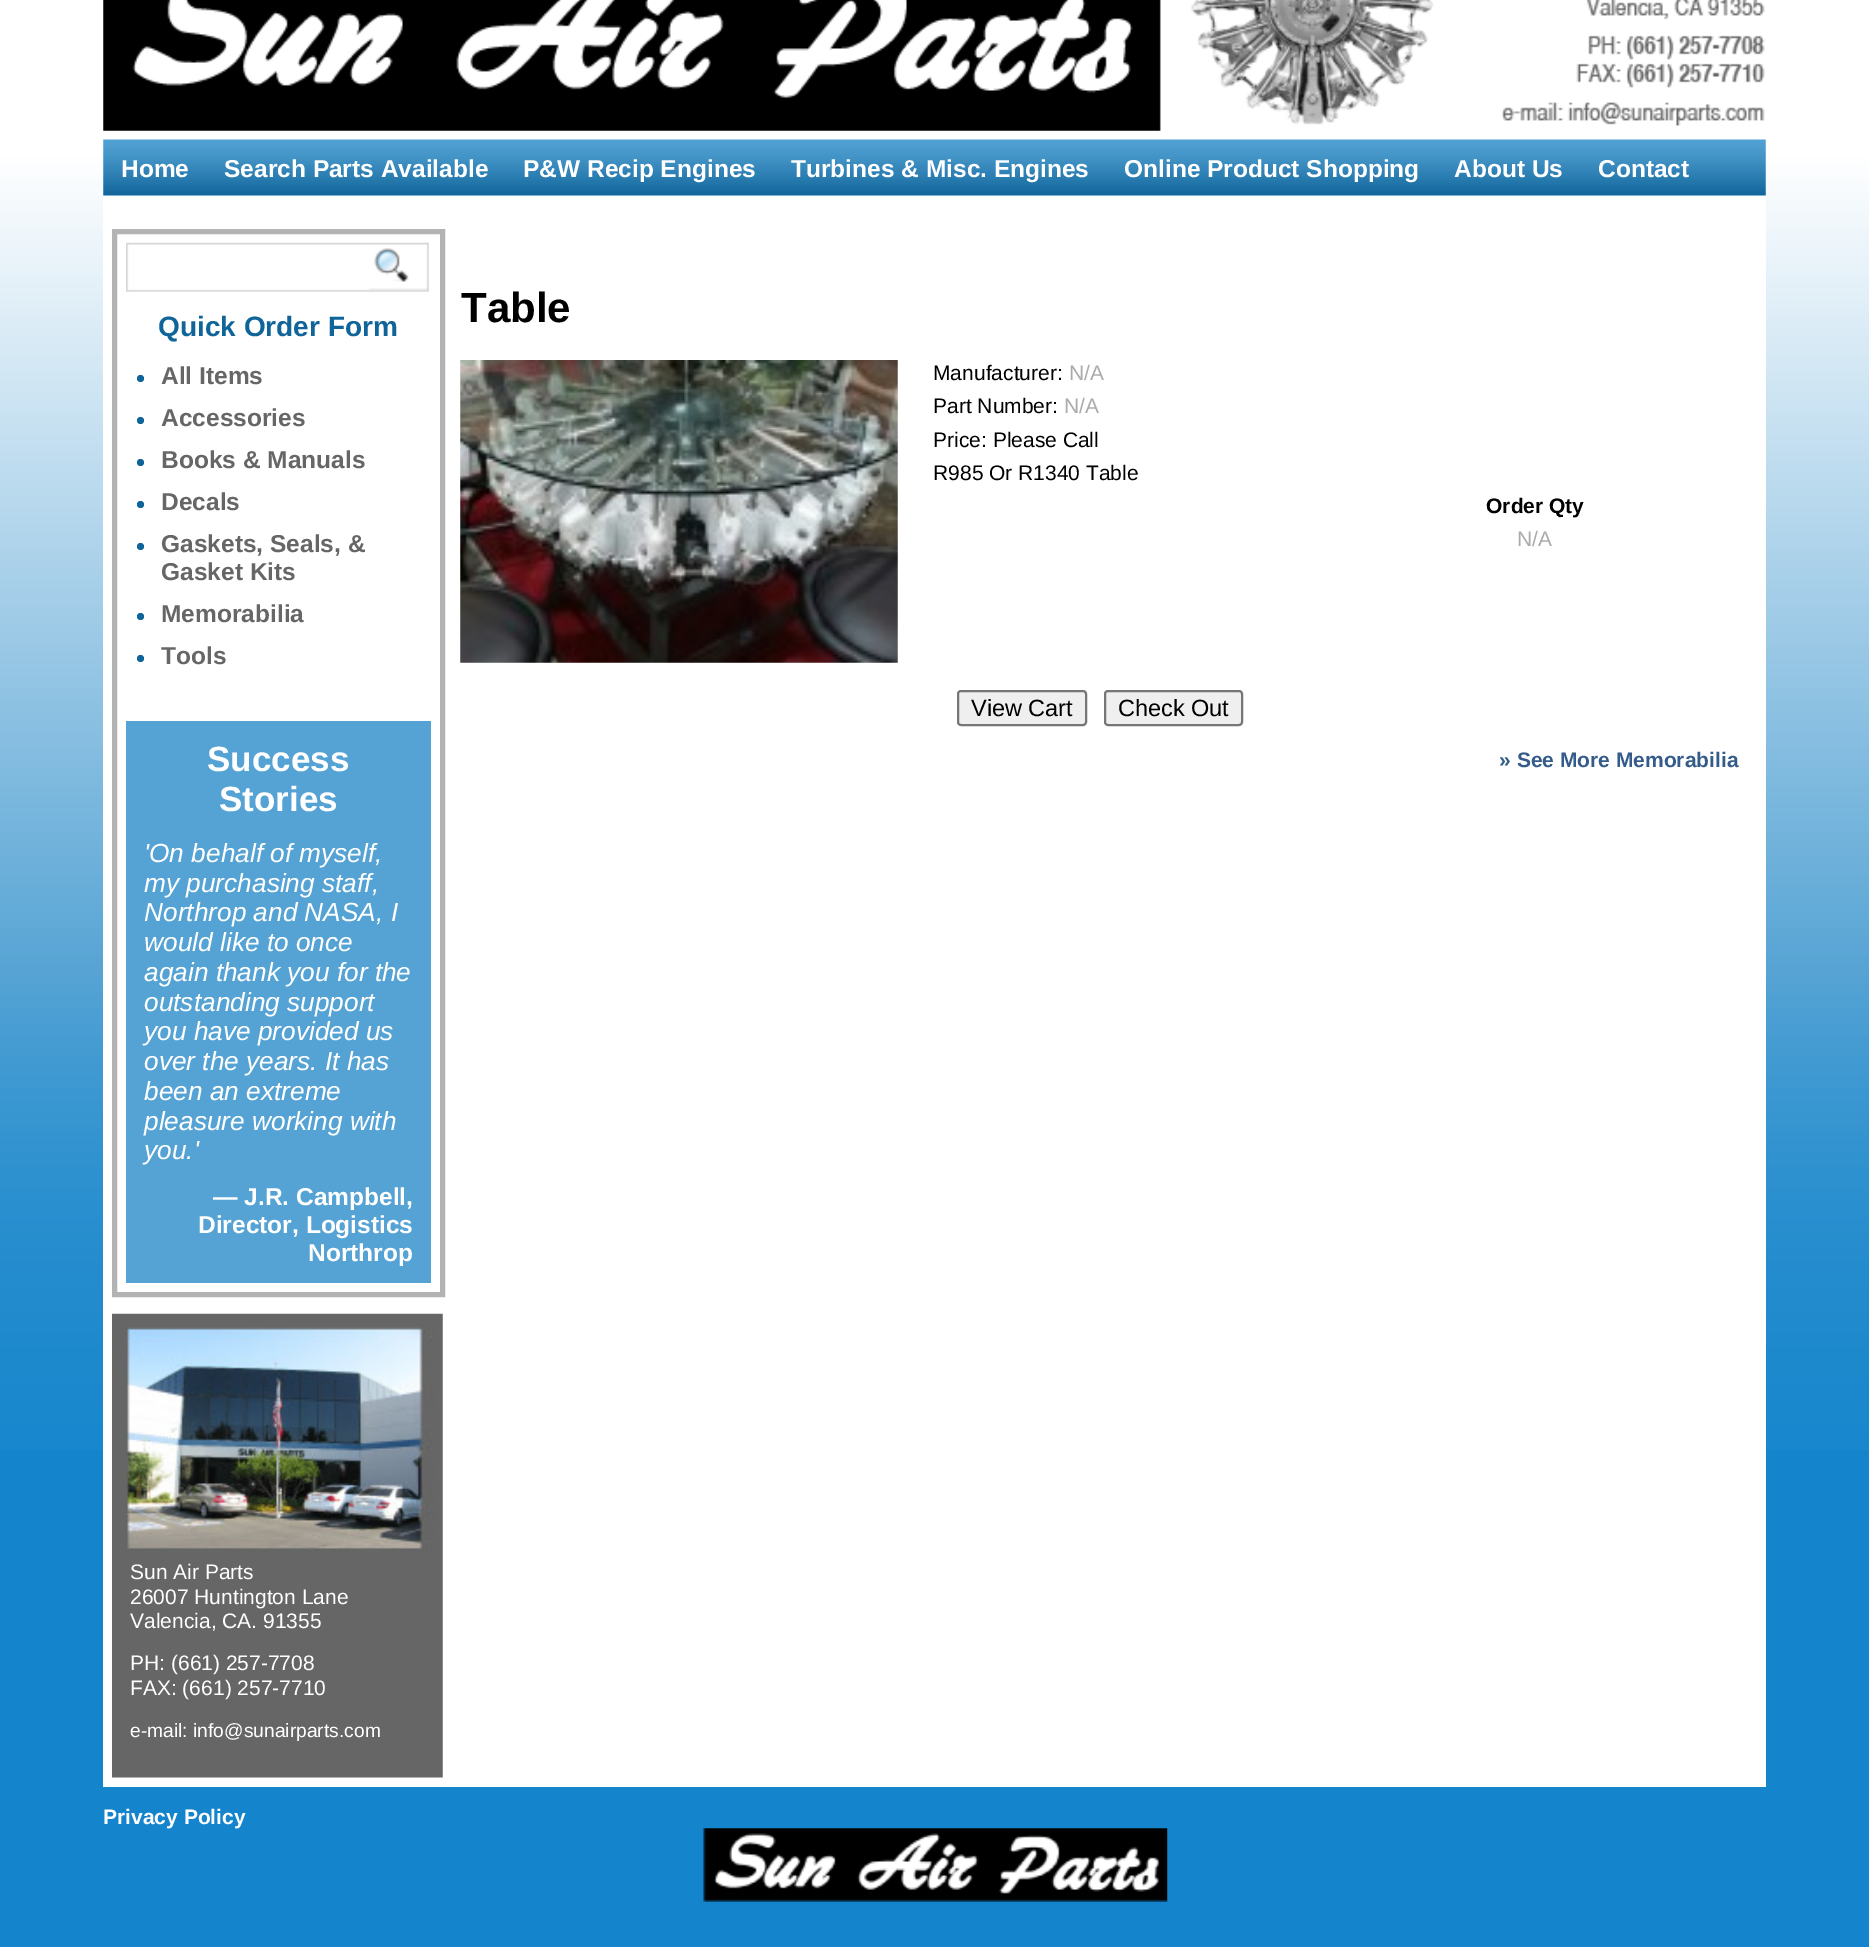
%!PS
<< /PageSize [1869 1947] >> setpagedevice
/rgb { dup -16 bitshift 255 div exch dup -8 bitshift 255 and 255 div exch 255 and 255 div setrgbcolor } def
/font { [ exch dup neg 0 0 3 -1 roll 0 0 ] selectfont } def
/text { moveto show } def
/circle { newpath 0 360 arc closepath } def
/roundrect { 5 dict begin { /r /h /w /y /x } { exch def } forall
  x r add y moveto x w add y 2 copy h add r arct x w add y h add x 1 index r arct
  x y h add x y r arct x y 2 copy exch w add exch r arct closepath end } def
/picture { 5 dict begin { /h /w /y /x /name } { exch def } forall
  gsave x y translate w h scale
  w h 8 [w 0 0 h 0 0] name (r) file false 3 colorimage grestore end } def
0 1947 translate 1 -1 scale
4 setmiterlimit
/s1 { /LiberationSans-Bold 24.5 font 16#FFFFFF rgb } def
/s2 { /LiberationSans-Bold 28 font 16#0F6499 rgb } def
/s3 { /LiberationSans-Bold 24.5 font 16#666666 rgb } def
/s4 { /LiberationSans-Bold 35 font 16#FFFFFF rgb } def
/s5 { /LiberationSans-Italic 26.25 font 16#FFFFFF rgb } def
/s6 { /LiberationSans-Regular 21 font 16#FFFFFF rgb } def
/s7 { /LiberationSans-Regular 19.25 font 16#FFFFFF rgb } def
/s8 { /LiberationSans-Bold 42 font 16#000000 rgb } def
/s9 { /LiberationSans-Regular 21 font 16#000000 rgb } def
/s10 { /LiberationSans-Regular 21 font 16#ABABAB rgb } def
/s11 { /LiberationSans-Bold 21 font 16#000000 rgb } def
/s12 { /LiberationSans-Regular 23.5 font 16#000000 rgb } def
/s13 { /LiberationSans-Bold 21 font 16#345B8A rgb } def
/s14 { /LiberationSans-Bold 21 font 16#FFFFFF rgb } def
16#1485CC rgb
0 0 1869 1947 rectfill
(pic1.raw) 0 0 1869 1450 picture
(pic2.raw) 103 0 1662 131 picture
(pic3.raw) 103 139 1663 57 picture
s1
(Home) 121 177 text
(Search Parts Available) 224 177 text
(P&W Recip Engines) 523 177 text
(Turbines & Misc. Engines) 791 177 text
(Online Product Shopping) 1124 177 text
(About Us) 1454 177 text
(Contact) 1598 177 text
103 196 1663 1591 rectfill
16#B3B3B3 rgb
5 setlinewidth
114.5 231.5 328 1063 rectstroke
(pic4.raw) 126 242 303 50 picture
(pic5.raw) 374 248 35 34 picture
s2
(Quick Order Form) 158 336 text
140.5 378.5 3.5 circle fill
s3
(All Items) 161 384 text
16#0F6499 rgb
140.5 420.5 3.5 circle fill
s3
(Accessories) 161 426 text
16#0F6499 rgb
140.5 462.5 3.5 circle fill
s3
(Books & Manuals) 161 468 text
16#0F6499 rgb
140.5 504.5 3.5 circle fill
s3
(Decals) 161 510 text
16#0F6499 rgb
140.5 546.5 3.5 circle fill
s3
(Gaskets, Seals, &) 161 552 text
(Gasket Kits) 161 580 text
16#0F6499 rgb
140.5 616.5 3.5 circle fill
s3
(Memorabilia) 161 622 text
16#0F6499 rgb
140.5 658.5 3.5 circle fill
s3
(Tools) 161 664 text
16#55A3D4 rgb
126 721 305 562 rectfill
s4
(Success) 207 771 text
(Stories) 219 811 text
s5
('On behalf of myself,) 144 862 text
(my purchasing staff,) 144 892 text
(Northrop and NASA, I) 144 921 text
(would like to once) 144 951 text
(again thank you for the) 144 981 text
(outstanding support) 144 1011 text
(you have provided us) 144 1040 text
(over the years. It has) 144 1070 text
(been an extreme) 144 1100 text
(pleasure working with) 144 1130 text
(you.') 144 1159 text
s1
(— J.R. Campbell,) 213 1205 text
(Director, Logistics) 198 1233 text
(Northrop) 308 1261 text
(pic6.raw) 112 1313 331 465 picture
s6
(Sun Air Parts) 130 1579 text
(26007 Huntington Lane) 130 1604 text
(Valencia, CA. 91355) 130 1628 text
(PH: \(661\) 257-7708) 130 1670 text
(FAX: \(661\) 257-7710) 130 1695 text
s7
(e-mail: info@sunairparts.com) 130 1737 text
s8
(Table) 461 322 text
(pic7.raw) 460 360 438 303 picture
s9
(Manufacturer:) 933 380 text
s10
(N/A) 1069 380 text
s9
(Part Number:) 933 413 text
s10
(N/A) 1064 413 text
s9
(Price: Please Call) 933 447 text
(R985 Or R1340 Table) 933 480 text
s11
(Order Qty) 1486 513 text
s10
(N/A) 1517 546 text
16#EFEFEF rgb
958 691 128 34 3 roundrect gsave fill grestore
16#767676 rgb
2 setlinewidth
stroke
s12
(View Cart) 971 716 text
16#EFEFEF rgb
1105 691 137 34 3 roundrect gsave fill grestore
16#767676 rgb
stroke
s12
(Check Out) 1118 716 text
s13
(» See More Memorabilia) 1499 767 text
s14
(Privacy Policy) 103 1824 text
(pic8.raw) 703 1828 465 74 picture
showpage
